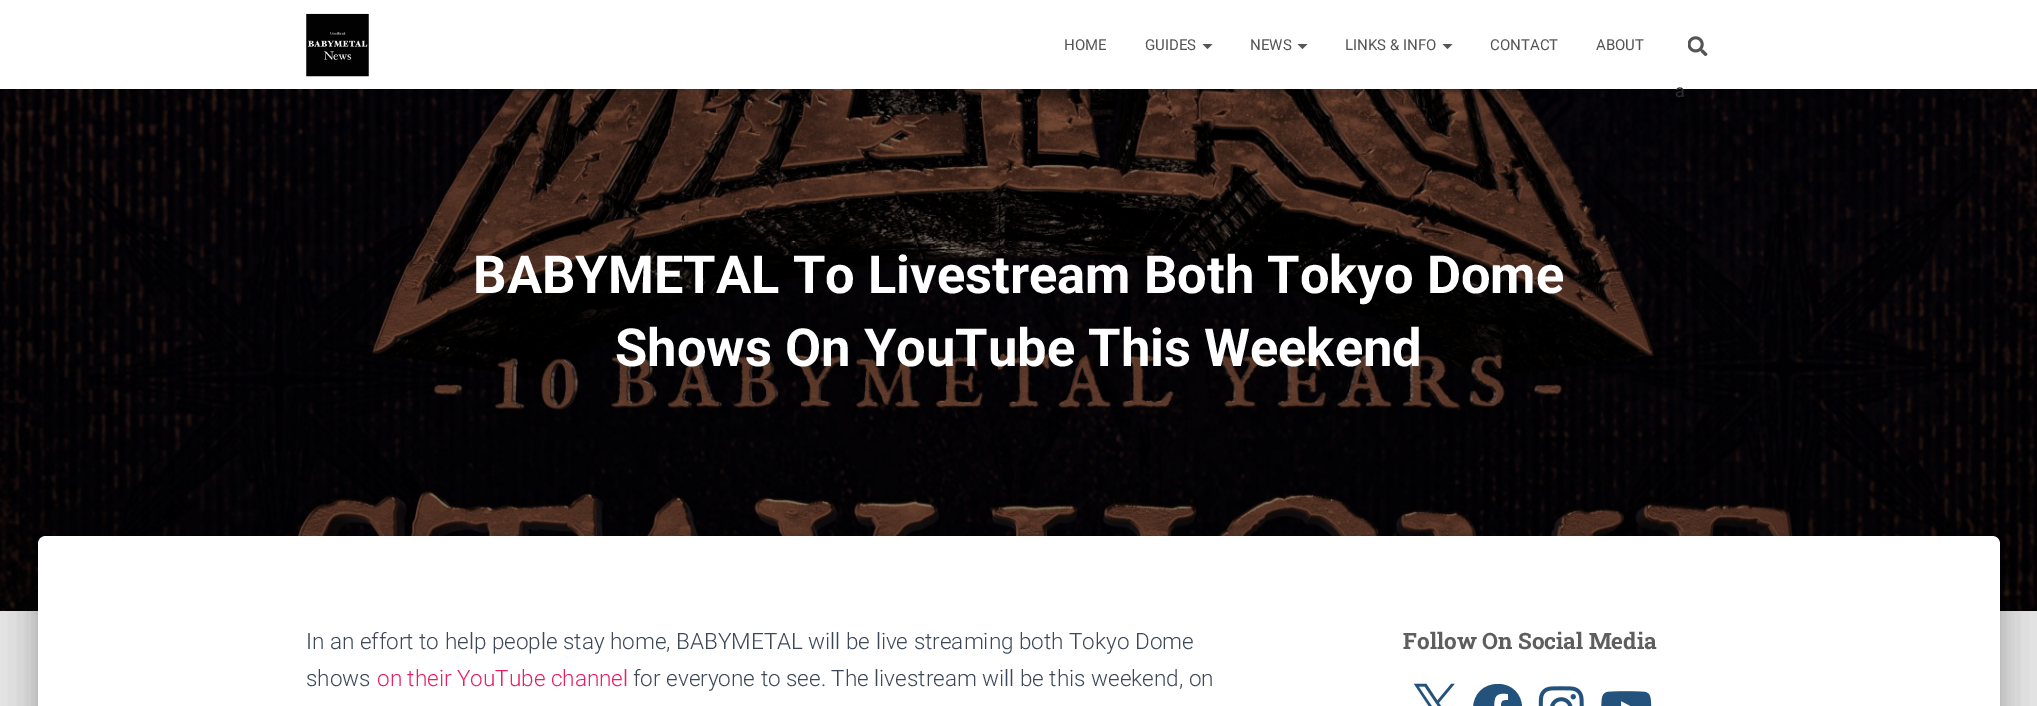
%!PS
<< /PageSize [2037 706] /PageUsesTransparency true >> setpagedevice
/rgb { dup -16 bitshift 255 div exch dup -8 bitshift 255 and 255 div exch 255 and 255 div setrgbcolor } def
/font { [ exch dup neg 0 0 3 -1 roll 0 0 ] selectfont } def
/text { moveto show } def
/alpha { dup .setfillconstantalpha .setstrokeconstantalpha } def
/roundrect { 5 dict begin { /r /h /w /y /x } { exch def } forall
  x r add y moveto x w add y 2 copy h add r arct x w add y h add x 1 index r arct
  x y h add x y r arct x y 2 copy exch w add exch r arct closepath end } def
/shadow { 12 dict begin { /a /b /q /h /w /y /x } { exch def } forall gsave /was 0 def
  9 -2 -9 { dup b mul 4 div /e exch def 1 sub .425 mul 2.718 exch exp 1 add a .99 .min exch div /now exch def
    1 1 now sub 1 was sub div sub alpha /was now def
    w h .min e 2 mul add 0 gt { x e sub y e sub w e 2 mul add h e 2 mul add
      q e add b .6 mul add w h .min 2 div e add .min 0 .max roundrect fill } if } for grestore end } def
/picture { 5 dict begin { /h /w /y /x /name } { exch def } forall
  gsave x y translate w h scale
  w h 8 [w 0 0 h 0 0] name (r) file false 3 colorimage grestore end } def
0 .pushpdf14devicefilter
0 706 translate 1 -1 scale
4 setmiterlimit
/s1 { /Roboto-Regular 15 font 16#555555 rgb } def
/s2 { /Roboto-Regular 18 font 16#2C2C2E rgb } def
/s3 { /Roboto-Bold 52.5 font 16#FFFFFF rgb } def
/s4 { /Roboto-Light 22.5 font 16#3C4858 rgb } def
/s5 { /Roboto-Light 22.5 font 16#E91E63 rgb } def
/s6 { /RobotoSlab-Bold 22.5 font 16#5E5E5E rgb } def
16#E5E5E5 rgb
0 0 2037 706 rectfill
(pic3.raw) 0 89 2037 522 picture
16#000000 rgb
3 8 2032 83 0 3 0.1 shadow
0 1 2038 89 0 6 0.12 shadow
8 9 2022 74 0 6 0.42 shadow
16#FFFFFF rgb
0 0 2037 89 rectfill
(pic1.raw) 306 13 63 64 picture
s1
(HOME) 1064 50 text
(GUIDES) 1145 50 text
1202.5 44 moveto 1212.5 44 lineto 1207.5 49 lineto closepath fill
(NEWS) 1250 50 text
1297.5 44 moveto 1307.5 44 lineto 1302.5 49 lineto closepath fill
(LINKS & INFO) 1345 50 text
1442.5 44 moveto 1452.5 44 lineto 1447.5 49 lineto closepath fill
(CONTACT) 1490 50 text
(ABOUT) 1596 50 text
(pic2.raw) 1688 36 20 20 picture
s2
(a) 1675 97 text
s3
(BABYMETAL To Livestream Both Tokyo Dome) 473 293 text
(Shows On YouTube This Weekend) 615 366 text
16#000000 rgb
44 553 1950 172 1 6 0.2 shadow
31 538 1975 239 14 19 0.12 shadow
35 554 1968 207 10 15 0.14 shadow
16#FFFFFF rgb
46 536 moveto 1992 536 lineto 1996.5 536 2000 539.5 2000 544 curveto 2000 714 lineto 38 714 lineto 38 544 lineto 38 539.5 41.5 536 46 536 curveto closepath fill
s4
(In an effort to help people stay home, BABYMETAL will be live streaming both Tokyo Dome) 306 649 text
(shows) 306 686 text
s5
(on their YouTube channel) 377 686 text
s4
(for everyone to see. The livestream will be this weekend, on) 633 686 text
s6
(Follow On Social Media) 1403 649 text
(pic4.raw) 1413 683 42 23 picture
16#23527C rgb
1498 684 moveto 1467 684 1464 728 1494 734 curveto 1494 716 lineto 1487 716 lineto 1487 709 lineto 1494 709 lineto 1494 697 1495 692 1508 694 curveto 1508 700 lineto 1501 700 1501 702 1501 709 curveto 1508 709 lineto 1507 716 lineto 1502 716 lineto 1502 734 lineto 1531 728 1528 684 1498 684 curveto closepath fill
(pic5.raw) 1538 686 46 20 picture
(pic6.raw) 1601 691 51 15 picture
.poppdf14devicefilter showpage
